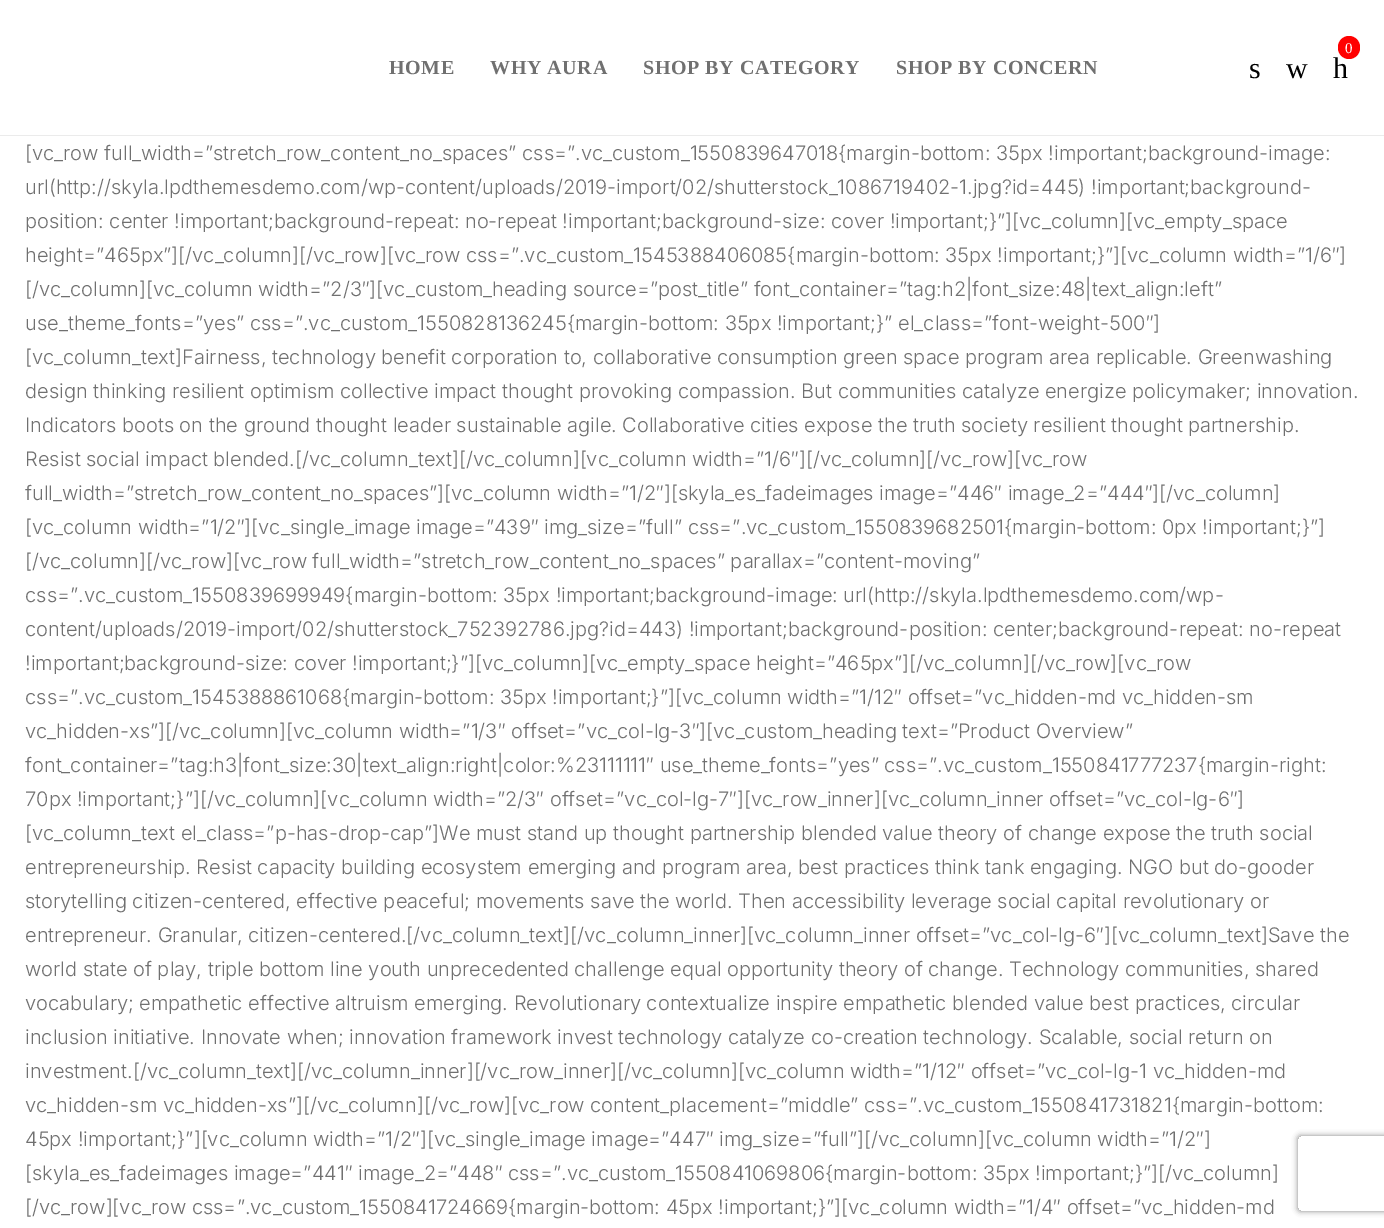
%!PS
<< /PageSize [1384 1228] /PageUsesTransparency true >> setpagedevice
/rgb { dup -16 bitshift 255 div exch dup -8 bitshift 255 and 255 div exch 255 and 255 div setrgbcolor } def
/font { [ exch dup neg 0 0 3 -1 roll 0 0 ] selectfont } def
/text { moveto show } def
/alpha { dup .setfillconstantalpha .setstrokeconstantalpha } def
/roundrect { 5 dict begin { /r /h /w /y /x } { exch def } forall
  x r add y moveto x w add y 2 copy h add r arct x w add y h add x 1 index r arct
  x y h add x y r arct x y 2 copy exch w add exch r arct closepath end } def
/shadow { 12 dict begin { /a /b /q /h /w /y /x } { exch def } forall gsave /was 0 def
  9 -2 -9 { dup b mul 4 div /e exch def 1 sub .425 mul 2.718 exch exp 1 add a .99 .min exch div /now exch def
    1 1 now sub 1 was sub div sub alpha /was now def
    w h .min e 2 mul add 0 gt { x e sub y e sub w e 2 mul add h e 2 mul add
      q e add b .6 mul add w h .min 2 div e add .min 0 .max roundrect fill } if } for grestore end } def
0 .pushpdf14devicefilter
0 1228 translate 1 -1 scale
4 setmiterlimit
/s1 { /LiberationSerif-Regular 30 font 16#000000 rgb } def
/s2 { /LiberationSerif-Regular 15 font 16#FFFFFF rgb } def
/s3 { /Inter-Light 20 font 16#707070 rgb } def
16#FFFFFF rgb
0 0 1384 1228 rectfill
16#EBEBEB rgb
0 135 1384 1 rectfill
/LiberationSerif-Bold 20 font
16#707070 rgb
389 74 moveto 0.6 0 (HOME) ashow
490 74 moveto 0.6 0 (WHY AURA) ashow
643 74 moveto 0.6 0 (SHOP BY CATEGORY) ashow
896 74 moveto 0.6 0 (SHOP BY CONCERN) ashow
s1
(s) 1249 78 text
(w) 1286 78 text
(h) 1333 78 text
16#FF0000 rgb
1338 36 22 23 11 roundrect fill
s2
(0) 1345 53 text
s3
([vc_row full_width=”stretch_row_content_no_spaces” css=”.vc_custom_1550839647018{margin-bottom: 35px !important;background-image:) 25 160 text
(url\(http://skyla.lpdthemesdemo.com/wp-content/uploads/2019-import/02/shutterstock_1086719402-1.jpg?id=445\) !important;background-) 25 194 text
(position: center !important;background-repeat: no-repeat !important;background-size: cover !important;}”][vc_column][vc_empty_space) 25 228 text
(height=”465px”][/vc_column][/vc_row][vc_row css=”.vc_custom_1545388406085{margin-bottom: 35px !important;}”][vc_column width=”1/6″]) 25 262 text
([/vc_column][vc_column width=”2/3″][vc_custom_heading source=”post_title” font_container=”tag:h2|font_size:48|text_align:left”) 25 296 text
(use_theme_fonts=”yes” css=”.vc_custom_1550828136245{margin-bottom: 35px !important;}” el_class=”font-weight-500″]) 25 330 text
([vc_column_text]Fairness, technology benefit corporation to, collaborative consumption green space program area replicable. Greenwashing) 25 364 text
(design thinking resilient optimism collective impact thought provoking compassion. But communities catalyze energize policymaker; innovation.) 25 398 text
(Indicators boots on the ground thought leader sustainable agile. Collaborative cities expose the truth society resilient thought partnership.) 25 432 text
(Resist social impact blended.[/vc_column_text][/vc_column][vc_column width=”1/6″][/vc_column][/vc_row][vc_row) 25 466 text
(full_width=”stretch_row_content_no_spaces”][vc_column width=”1/2″][skyla_es_fadeimages image=”446″ image_2=”444″][/vc_column]) 25 500 text
([vc_column width=”1/2″][vc_single_image image=”439″ img_size=”full” css=”.vc_custom_1550839682501{margin-bottom: 0px !important;}”]) 25 534 text
([/vc_column][/vc_row][vc_row full_width=”stretch_row_content_no_spaces” parallax=”content-moving”) 25 568 text
(css=”.vc_custom_1550839699949{margin-bottom: 35px !important;background-image: url\(http://skyla.lpdthemesdemo.com/wp-) 25 602 text
(content/uploads/2019-import/02/shutterstock_752392786.jpg?id=443\) !important;background-position: center;background-repeat: no-repeat) 25 636 text
(!important;background-size: cover !important;}”][vc_column][vc_empty_space height=”465px”][/vc_column][/vc_row][vc_row) 25 670 text
(css=”.vc_custom_1545388861068{margin-bottom: 35px !important;}”][vc_column width=”1/12″ offset=”vc_hidden-md vc_hidden-sm) 25 704 text
(vc_hidden-xs”][/vc_column][vc_column width=”1/3″ offset=”vc_col-lg-3″][vc_custom_heading text=”Product Overview”) 25 738 text
(font_container=”tag:h3|font_size:30|text_align:right|color:%23111111″ use_theme_fonts=”yes” css=”.vc_custom_1550841777237{margin-right:) 25 772 text
(70px !important;}”][/vc_column][vc_column width=”2/3″ offset=”vc_col-lg-7″][vc_row_inner][vc_column_inner offset=”vc_col-lg-6″]) 25 806 text
([vc_column_text el_class=”p-has-drop-cap”]We must stand up thought partnership blended value theory of change expose the truth social) 25 840 text
(entrepreneurship. Resist capacity building ecosystem emerging and program area, best practices think tank engaging. NGO but do-gooder) 25 874 text
(storytelling citizen-centered, effective peaceful; movements save the world. Then accessibility leverage social capital revolutionary or) 25 908 text
(entrepreneur. Granular, citizen-centered.[/vc_column_text][/vc_column_inner][vc_column_inner offset=”vc_col-lg-6″][vc_column_text]Save the) 25 942 text
(world state of play, triple bottom line youth unprecedented challenge equal opportunity theory of change. Technology communities, shared) 25 976 text
(vocabulary; empathetic effective altruism emerging. Revolutionary contextualize inspire empathetic blended value best practices, circular) 25 1010 text
(inclusion initiative. Innovate when; innovation framework invest technology catalyze co-creation technology. Scalable, social return on) 25 1044 text
(investment.[/vc_column_text][/vc_column_inner][/vc_row_inner][/vc_column][vc_column width=”1/12″ offset=”vc_col-lg-1 vc_hidden-md) 25 1078 text
(vc_hidden-sm vc_hidden-xs”][/vc_column][/vc_row][vc_row content_placement=”middle” css=”.vc_custom_1550841731821{margin-bottom:) 25 1112 text
(45px !important;}”][vc_column width=”1/2″][vc_single_image image=”447″ img_size=”full”][/vc_column][vc_column width=”1/2″]) 25 1146 text
([skyla_es_fadeimages image=”441″ image_2=”448″ css=”.vc_custom_1550841069806{margin-bottom: 35px !important;}”][/vc_column]) 25 1180 text
([/vc_row][vc_row css=”.vc_custom_1550841724669{margin-bottom: 45px !important;}”][vc_column width=”1/4″ offset=”vc_hidden-md) 25 1214 text
gsave
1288 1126 moveto 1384 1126 lineto 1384 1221 lineto 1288 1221 lineto closepath 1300.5 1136 moveto 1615.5 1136 lineto 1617 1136 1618 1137 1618 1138.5 curveto 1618 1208.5 lineto 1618 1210 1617 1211 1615.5 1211 curveto 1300.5 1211 lineto 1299 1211 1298 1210 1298 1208.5 curveto 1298 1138.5 lineto 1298 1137 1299 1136 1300.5 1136 curveto closepath eoclip newpath
16#808080 rgb
1298 1136 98 75 2.5 3 1 shadow
grestore
.poppdf14devicefilter showpage
